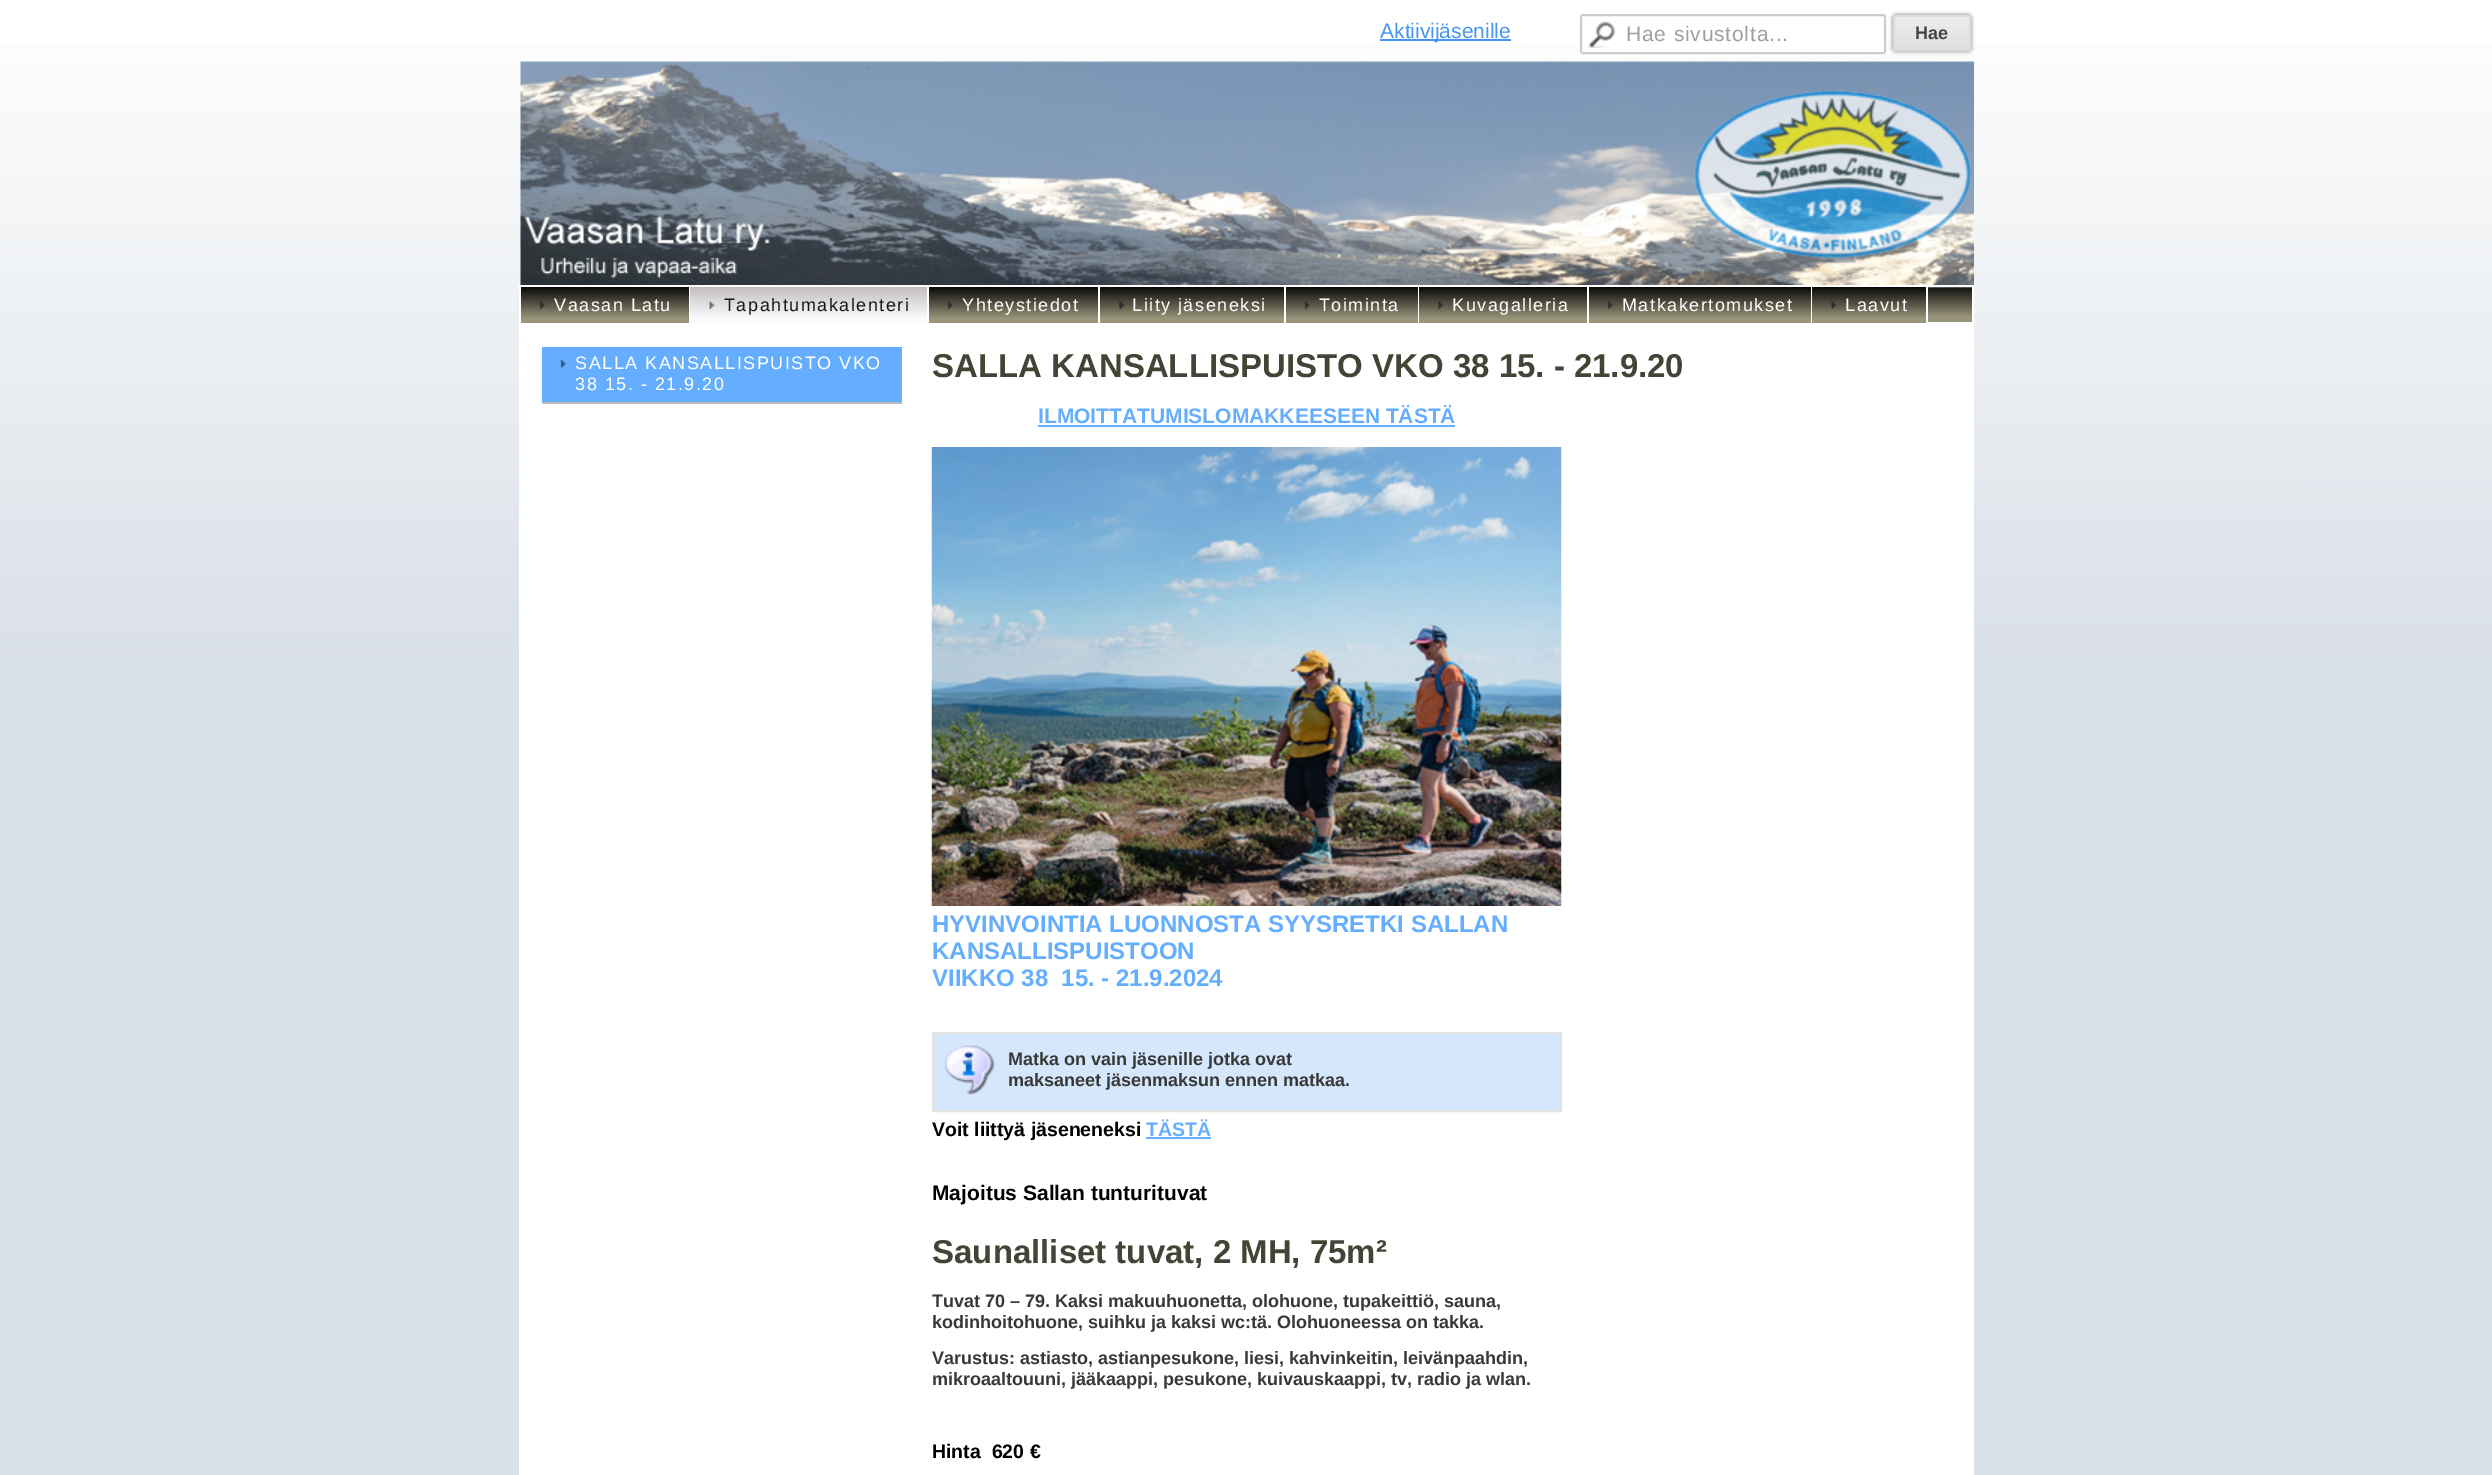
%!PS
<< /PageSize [2492 1475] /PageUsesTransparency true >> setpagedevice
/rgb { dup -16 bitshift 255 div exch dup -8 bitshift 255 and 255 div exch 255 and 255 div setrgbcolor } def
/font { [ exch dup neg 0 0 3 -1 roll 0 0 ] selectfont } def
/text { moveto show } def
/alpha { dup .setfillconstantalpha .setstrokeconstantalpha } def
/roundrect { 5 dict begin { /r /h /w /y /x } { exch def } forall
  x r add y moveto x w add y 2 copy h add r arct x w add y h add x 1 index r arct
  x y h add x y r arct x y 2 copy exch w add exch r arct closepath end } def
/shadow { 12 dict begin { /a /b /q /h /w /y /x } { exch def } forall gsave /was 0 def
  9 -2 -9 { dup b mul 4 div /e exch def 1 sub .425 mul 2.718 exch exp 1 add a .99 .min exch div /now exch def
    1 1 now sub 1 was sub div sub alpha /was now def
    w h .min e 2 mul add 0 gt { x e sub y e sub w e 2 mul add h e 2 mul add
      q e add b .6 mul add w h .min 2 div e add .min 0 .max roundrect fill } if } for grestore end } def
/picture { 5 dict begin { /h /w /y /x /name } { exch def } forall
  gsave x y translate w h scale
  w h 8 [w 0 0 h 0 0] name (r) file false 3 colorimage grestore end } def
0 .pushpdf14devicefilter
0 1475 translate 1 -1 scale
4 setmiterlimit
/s1 { /LiberationSans-Regular 21 font 16#4395EF rgb } def
/s2 { /LiberationSans-Bold 18 font 16#444444 rgb } def
/s3 { /LiberationSans-Bold 33 font 16#444436 rgb } def
/s4 { /LiberationSans-Bold 21 font 16#65AEFF rgb } def
/s5 { /LiberationSans-Bold 24 font 16#65AEFF rgb } def
/s6 { /LiberationSans-Bold 18 font 16#383838 rgb } def
/s7 { /LiberationSans-Bold 19.5 font 16#000000 rgb } def
/s8 { /LiberationSans-Bold 19.5 font 16#65AEFF rgb } def
/s9 { /LiberationSans-Bold 21 font 16#000000 rgb } def
16#FFFFFF rgb
0 0 2492 1475 rectfill
gsave 0 44 moveto 2492 44 lineto 2492 1475 lineto 0 1475 lineto closepath clip newpath
<< /ShadingType 2 /ColorSpace /DeviceRGB /Coords [1246 0 1247 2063] /Extend [true true] /Function << /FunctionType 3 /Domain [0 1] /Functions [<< /FunctionType 2 /Domain [0 1] /C0 [1 1 1] /C1 [0.851 0.878 0.906] /N 1 >> << /FunctionType 2 /Domain [0 1] /C0 [0.851 0.878 0.906] /C1 [0.851 0.878 0.906] /N 1 >>] /Bounds [0.33] /Encode [0 1 0 1] >> >> shfill grestore
16#4395EF rgb
1380 39 131 2 rectfill
s1
(Aktiivijäsenille) 1380 38 text
16#FFFFFF rgb
1580 14 306 40 3 roundrect fill
(pic1.raw) 1588 21 28 27 picture
16#E6E6E6 rgb
1582 16 moveto 1882 16 lineto 1883 16 1884 17 1884 18 curveto 1884 17 1884 15 1882 15 curveto 1582 15 lineto 1581 16 1581 17 1581 18 curveto closepath fill
16#CCCCCC rgb
2 setlinewidth
1581 15 304 38 2 roundrect stroke
16#9F9F9F rgb
1626 41 moveto 0.8 0 (Hae sivustolta...) ashow
16#666666 rgb
1893 15 78 36 3 2 1 shadow
gsave
1893 15 78 36 3 roundrect clip newpath
gsave 1893 17 moveto 1971 17 lineto 1971 50 lineto 1893 50 lineto closepath clip newpath
<< /ShadingType 2 /ColorSpace /DeviceRGB /Coords [1895 17 1895 50] /Extend [true true] /Function << /FunctionType 3 /Domain [0 1] /Functions [<< /FunctionType 2 /Domain [0 1] /C0 [0.929 0.929 0.929] /C1 [0.929 0.929 0.929] /N 1 >> << /FunctionType 2 /Domain [0 1] /C0 [0.929 0.929 0.929] /C1 [0.875 0.875 0.875] /N 1 >>] /Bounds [0.05] /Encode [0 1 0 1] >> >> shfill grestore
grestore
16#DCDCDC rgb
1894 16 76 34 2 roundrect stroke
s2
(Hae) 1915 39 text
(pic2.raw) 520 61 1454 224 picture
gsave 1928 287 moveto 1972 287 lineto 1972 322 lineto 1928 322 lineto closepath clip newpath
<< /ShadingType 2 /ColorSpace /DeviceRGB /Coords [1247 285 1247 324] /Extend [true true] /Function << /FunctionType 3 /Domain [0 1] /Functions [<< /FunctionType 2 /Domain [0 1] /C0 [0.035 0.031 0.031] /C1 [0.596 0.58 0.478] /N 1 >> << /FunctionType 2 /Domain [0 1] /C0 [0.596 0.58 0.478] /C1 [0.596 0.58 0.478] /N 1 >>] /Bounds [0.81] /Encode [0 1 0 1] >> >> shfill grestore
16#FFFFFF rgb
520 286 1453 37 rectstroke
gsave 521 287 moveto 689 287 lineto 689 323 lineto 521 323 lineto closepath clip newpath
<< /ShadingType 2 /ColorSpace /DeviceRGB /Coords [605 287 605 323] /Extend [true true] /Function << /FunctionType 3 /Domain [0 1] /Functions [<< /FunctionType 2 /Domain [0 1] /C0 [0.035 0.031 0.031] /C1 [0.596 0.58 0.478] /N 1 >> << /FunctionType 2 /Domain [0 1] /C0 [0.596 0.58 0.478] /C1 [0.596 0.58 0.478] /N 1 >>] /Bounds [0.87] /Encode [0 1 0 1] >> >> shfill grestore
689 287 1 36 rectfill
(pic3.raw) 539 301 6 8 picture
/LiberationSans-Regular 18 font
554 311 moveto 1.5 0 (Vaasan Latu) ashow
gsave 690 287 moveto 927 287 lineto 927 323 lineto 690 323 lineto closepath clip newpath
<< /ShadingType 2 /ColorSpace /DeviceRGB /Coords [809 287 809 323] /Extend [true true] /Function << /FunctionType 3 /Domain [0 1] /Functions [<< /FunctionType 2 /Domain [0 1] /C0 [0.765 0.741 0.741] /C1 [0.976 0.984 0.992] /N 1 >> << /FunctionType 2 /Domain [0 1] /C0 [0.976 0.984 0.992] /C1 [0.976 0.984 0.992] /N 1 >>] /Bounds [0.87] /Encode [0 1 0 1] >> >> shfill grestore
927 287 2 36 rectfill
(pic4.raw) 709 301 6 8 picture
16#191515 rgb
724 311 moveto 1.5 0 (Tapahtumakalenteri) ashow
gsave 929 287 moveto 1098 287 lineto 1098 323 lineto 929 323 lineto closepath clip newpath
<< /ShadingType 2 /ColorSpace /DeviceRGB /Coords [1013 287 1013 323] /Extend [true true] /Function << /FunctionType 3 /Domain [0 1] /Functions [<< /FunctionType 2 /Domain [0 1] /C0 [0.035 0.031 0.031] /C1 [0.596 0.58 0.478] /N 1 >> << /FunctionType 2 /Domain [0 1] /C0 [0.596 0.58 0.478] /C1 [0.596 0.58 0.478] /N 1 >>] /Bounds [0.87] /Encode [0 1 0 1] >> >> shfill grestore
16#FFFFFF rgb
1098 287 2 36 rectfill
(pic5.raw) 947 301 6 8 picture
962 311 moveto 1.5 0 (Yhteystiedot) ashow
gsave 1100 287 moveto 1284 287 lineto 1284 323 lineto 1100 323 lineto closepath clip newpath
<< /ShadingType 2 /ColorSpace /DeviceRGB /Coords [1192 287 1192 323] /Extend [true true] /Function << /FunctionType 3 /Domain [0 1] /Functions [<< /FunctionType 2 /Domain [0 1] /C0 [0.035 0.031 0.031] /C1 [0.596 0.58 0.478] /N 1 >> << /FunctionType 2 /Domain [0 1] /C0 [0.596 0.58 0.478] /C1 [0.596 0.58 0.478] /N 1 >>] /Bounds [0.87] /Encode [0 1 0 1] >> >> shfill grestore
1284 287 2 36 rectfill
(pic6.raw) 1119 301 6 8 picture
1132 311 moveto 1.5 0 (Liity jäseneksi) ashow
gsave 1286 287 moveto 1418 287 lineto 1418 323 lineto 1286 323 lineto closepath clip newpath
<< /ShadingType 2 /ColorSpace /DeviceRGB /Coords [1352 287 1352 323] /Extend [true true] /Function << /FunctionType 3 /Domain [0 1] /Functions [<< /FunctionType 2 /Domain [0 1] /C0 [0.035 0.031 0.031] /C1 [0.596 0.58 0.478] /N 1 >> << /FunctionType 2 /Domain [0 1] /C0 [0.596 0.58 0.478] /C1 [0.596 0.58 0.478] /N 1 >>] /Bounds [0.87] /Encode [0 1 0 1] >> >> shfill grestore
1418 287 1 36 rectfill
(pic3.raw) 1304 301 6 8 picture
1319 311 moveto 1.5 0 (Toiminta) ashow
gsave 1419 287 moveto 1587 287 lineto 1587 323 lineto 1419 323 lineto closepath clip newpath
<< /ShadingType 2 /ColorSpace /DeviceRGB /Coords [1503 287 1503 323] /Extend [true true] /Function << /FunctionType 3 /Domain [0 1] /Functions [<< /FunctionType 2 /Domain [0 1] /C0 [0.035 0.031 0.031] /C1 [0.596 0.58 0.478] /N 1 >> << /FunctionType 2 /Domain [0 1] /C0 [0.596 0.58 0.478] /C1 [0.596 0.58 0.478] /N 1 >>] /Bounds [0.87] /Encode [0 1 0 1] >> >> shfill grestore
1587 287 2 36 rectfill
(pic7.raw) 1438 301 6 8 picture
1452 311 moveto 1.5 0 (Kuvagalleria) ashow
gsave 1589 287 moveto 1811 287 lineto 1811 323 lineto 1589 323 lineto closepath clip newpath
<< /ShadingType 2 /ColorSpace /DeviceRGB /Coords [1700 287 1700 323] /Extend [true true] /Function << /FunctionType 3 /Domain [0 1] /Functions [<< /FunctionType 2 /Domain [0 1] /C0 [0.035 0.031 0.031] /C1 [0.596 0.58 0.478] /N 1 >> << /FunctionType 2 /Domain [0 1] /C0 [0.596 0.58 0.478] /C1 [0.596 0.58 0.478] /N 1 >>] /Bounds [0.87] /Encode [0 1 0 1] >> >> shfill grestore
1811 287 1 36 rectfill
(pic5.raw) 1607 301 6 8 picture
1622 311 moveto 1.5 0 (Matkakertomukset) ashow
gsave 1812 287 moveto 1926 287 lineto 1926 323 lineto 1812 323 lineto closepath clip newpath
<< /ShadingType 2 /ColorSpace /DeviceRGB /Coords [1869 287 1869 323] /Extend [true true] /Function << /FunctionType 3 /Domain [0 1] /Functions [<< /FunctionType 2 /Domain [0 1] /C0 [0.035 0.031 0.031] /C1 [0.596 0.58 0.478] /N 1 >> << /FunctionType 2 /Domain [0 1] /C0 [0.596 0.58 0.478] /C1 [0.596 0.58 0.478] /N 1 >>] /Bounds [0.87] /Encode [0 1 0 1] >> >> shfill grestore
1926 287 2 36 rectfill
(pic8.raw) 1831 301 6 8 picture
1845 311 moveto 1.5 0 (Laavut) ashow
519 324 1455 1151 rectfill
16#65AEFF rgb
542 347 360 55 rectfill
16#BABABA rgb
542 402 360 2 rectfill
(pic9.raw) 560 360 6 8 picture
16#FFFFFF rgb
575 369 moveto 1.5 0 (SALLA KANSALLISPUISTO VKO) ashow
575 390 moveto 1.5 0 (38 15. - 21.9.20) ashow
s3
(SALLA KANSALLISPUISTO VKO 38 15. - 21.9.20) 932 377 text
s4
(ILMOITTATUMISLOMAKKEESEEN TÄSTÄ) 1038 423 text
1038 425 417 2 rectfill
(pic10.raw) 931 447 631 459 picture
s5
(HYVINVOINTIA LUONNOSTA SYYSRETKI SALLAN) 932 932 text
(KANSALLISPUISTOON) 932 959 text
(VIIKKO 38  15. - 21.9.2024) 932 986 text
16#D5E7FC rgb
934 1034 626 76 rectfill
(pic11.raw) 945 1045 50 50 picture
16#E3E3E3 rgb
933 1033 628 78 rectstroke
s6
(Matka on vain jäsenille jotka ovat) 1008 1065 text
(maksaneet jäsenmaksun ennen matkaa.) 1008 1086 text
s7
(Voit liittyä jäseneneksi) 932 1136 text
16#65AEFF rgb
1146 1137 65 2 rectfill
(TÄSTÄ) 1146 1136 text
s9
(Majoitus Sallan tunturituvat) 932 1200 text
s3
(Saunalliset tuvat, 2 MH, 75m²) 932 1263 text
gsave
932 447 630 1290 rectclip
s6
(Tuvat 70 – 79. Kaksi makuuhuonetta, olohuone, tupakeittiö, sauna,) 932 1307 text
grestore
s6
(kodinhoitohuone, suihku ja kaksi wc:tä. Olohuoneessa on takka.) 932 1328 text
(Varustus: astiasto, astianpesukone, liesi, kahvinkeitin, leivänpaahdin,) 932 1364 text
(mikroaaltouuni, jääkaappi, pesukone, kuivauskaappi, tv, radio ja wlan.) 932 1385 text
s7
(Hinta  620 €) 932 1458 text
.poppdf14devicefilter showpage
